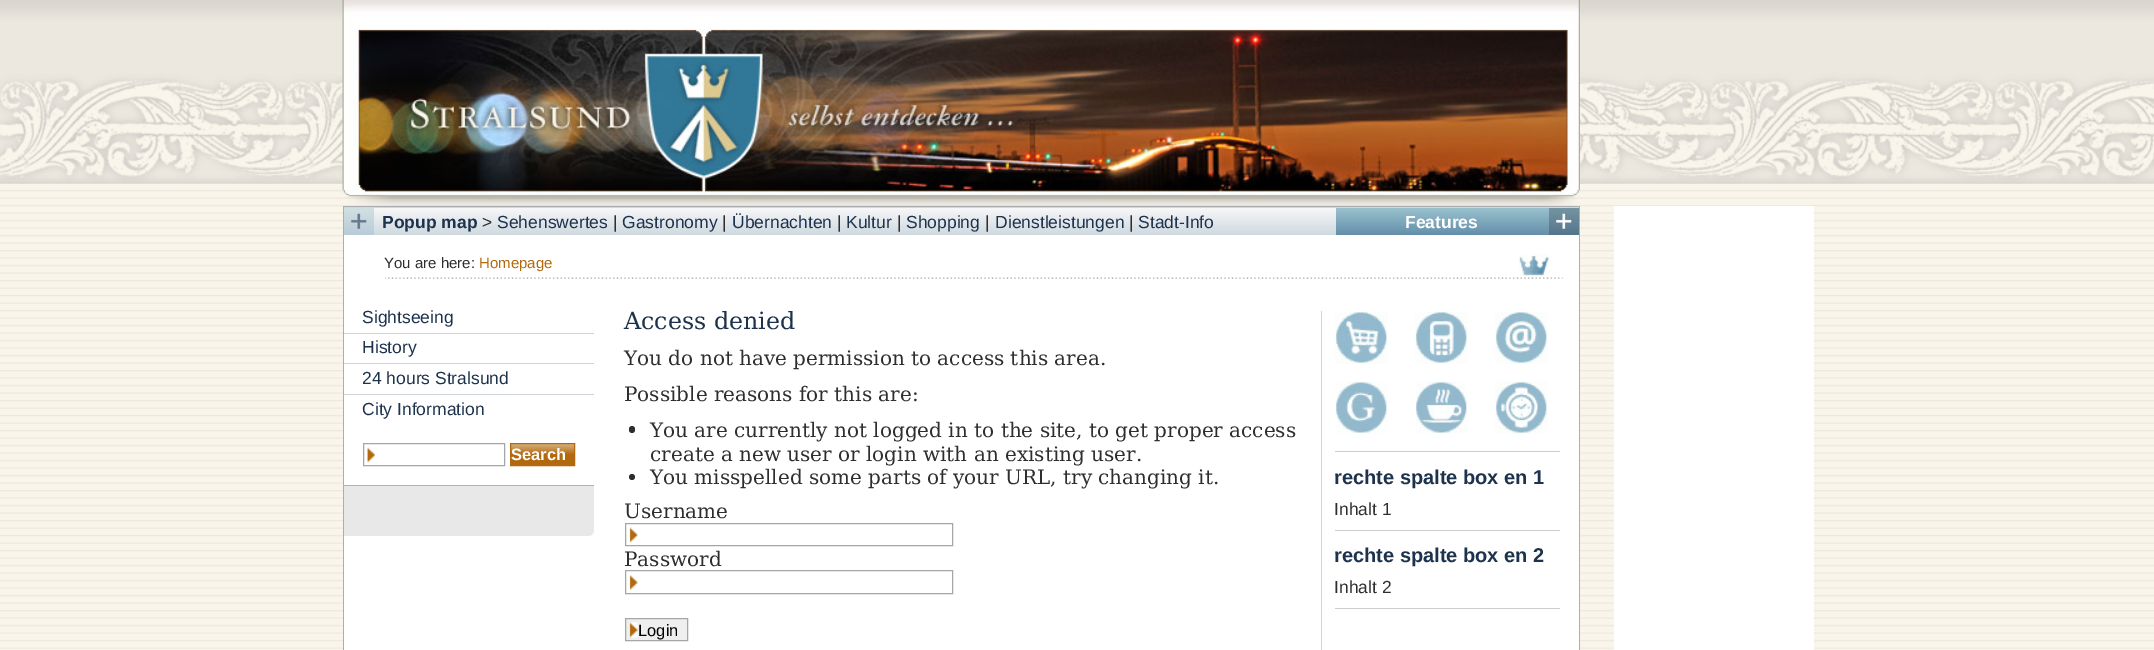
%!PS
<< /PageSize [2154 650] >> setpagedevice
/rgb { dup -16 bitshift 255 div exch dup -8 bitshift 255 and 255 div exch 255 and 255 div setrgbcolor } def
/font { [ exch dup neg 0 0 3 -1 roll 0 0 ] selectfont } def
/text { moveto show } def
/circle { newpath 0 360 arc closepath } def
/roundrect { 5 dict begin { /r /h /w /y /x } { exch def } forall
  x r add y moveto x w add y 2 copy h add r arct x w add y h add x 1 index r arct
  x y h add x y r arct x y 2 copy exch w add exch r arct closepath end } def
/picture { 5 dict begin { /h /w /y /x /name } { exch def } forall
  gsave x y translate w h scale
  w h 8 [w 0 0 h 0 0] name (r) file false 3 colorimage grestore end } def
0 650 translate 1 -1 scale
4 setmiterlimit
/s1 { /LiberationSans-Bold 17.5 font 16#1D324C rgb } def
/s2 { /LiberationSans-Regular 17.5 font 16#2E2D30 rgb } def
/s3 { /LiberationSans-Regular 17.5 font 16#1D324C rgb } def
/s4 { /LiberationSans-Bold 17.5 font 16#FFFFFF rgb } def
/s5 { /LiberationSans-Regular 15 font 16#2E2D30 rgb } def
/s6 { /LiberationSans-Regular 15 font 16#B2690E rgb } def
/s7 { /LiberationSans-Bold 16.5 font 16#FFFFFF rgb } def
/s8 { /DejaVuSerif-Regular 23.75 font 16#1D324C rgb } def
/s9 { /DejaVuSerif-Regular 20 font 16#2E2D30 rgb } def
/s10 { /LiberationSans-Regular 16.5 font 16#000000 rgb } def
/s11 { /LiberationSans-Bold 20 font 16#1D324C rgb } def
16#F9F5EA rgb
0 0 2154 650 rectfill
(pic1.raw) 0 0 2154 649 picture
(pic2.raw) 342 0 1238 207 picture
gsave 343 207 moveto 1580 207 lineto 1580 208 lineto 343 208 lineto closepath clip newpath
<< /ShadingType 2 /ColorSpace /DeviceRGB /Coords [961 180 961 208] /Extend [true true] /Function << /FunctionType 2 /Domain [0 1] /C0 [0.973 0.973 0.98] /C1 [0.808 0.851 0.875] /N 1 >> >> shfill grestore
gsave 374 208 moveto 1336 208 lineto 1336 235 lineto 374 235 lineto closepath clip newpath
<< /ShadingType 2 /ColorSpace /DeviceRGB /Coords [961 207 961 235] /Extend [true true] /Function << /FunctionType 2 /Domain [0 1] /C0 [0.973 0.973 0.98] /C1 [0.808 0.851 0.875] /N 1 >> >> shfill grestore
16#ACADB0 rgb
343 206 1237 1 rectfill
1579 206 1 29 rectfill
343 206 1 29 rectfill
gsave 344 208 moveto 374 208 lineto 374 235 lineto 344 235 lineto closepath clip newpath
<< /ShadingType 2 /ColorSpace /DeviceRGB /Coords [359 208 359 235] /Extend [true true] /Function << /FunctionType 2 /Domain [0 1] /C0 [0.824 0.878 0.882] /C1 [0.722 0.796 0.851] /N 1 >> >> shfill grestore
(pic3.raw) 351 213 16 16 picture
s1
(Popup map) 382 228 text
s2
(>) 482 228 text
s3
(Sehenswertes) 497 228 text
s2
(|) 613 228 text
s3
(Gastronomy) 622 228 text
s2
(|) 722 228 text
s3
(Übernachten) 732 228 text
s2
(|) 837 228 text
s3
(Kultur) 846 228 text
s2
(|) 897 228 text
s3
(Shopping) 906 228 text
s2
(|) 985 228 text
s3
(Dienstleistungen) 995 228 text
s2
(|) 1129 228 text
s3
(Stadt-Info) 1138 228 text
gsave 1336 208 moveto 1549 208 lineto 1549 235 lineto 1336 235 lineto closepath clip newpath
<< /ShadingType 2 /ColorSpace /DeviceRGB /Coords [1443 208 1443 235] /Extend [true true] /Function << /FunctionType 2 /Domain [0 1] /C0 [0.6 0.757 0.804] /C1 [0.388 0.561 0.667] /N 1 >> >> shfill grestore
s4
(Features) 1405 228 text
gsave 1549 208 moveto 1579 208 lineto 1579 235 lineto 1549 235 lineto closepath clip newpath
<< /ShadingType 2 /ColorSpace /DeviceRGB /Coords [1564 208 1564 235] /Extend [true true] /Function << /FunctionType 2 /Domain [0 1] /C0 [0.459 0.584 0.643] /C1 [0.329 0.455 0.545] /N 1 >> >> shfill grestore
(pic4.raw) 1556 213 16 16 picture
344 235 1235 415 rectfill
16#ACADB0 rgb
1579 235 1 415 rectfill
343 235 1 415 rectfill
(pic5.raw) 385 277 1178 2 picture
s5
(You are here:) 384 268 text
s6
(Homepage) 479 268 text
(pic6.raw) 1518 254 32 22 picture
s3
(Sightseeing) 362 323 text
16#CFD4DB rgb
344 333 250 1 rectfill
s3
(History) 362 353 text
16#CFD4DB rgb
344 363 250 1 rectfill
s3
(24 hours Stralsund) 362 384 text
16#CFD4DB rgb
344 394 250 1 rectfill
s3
(City Information) 362 415 text
(pic7.raw) 367 447 8 16 picture
16#A6A6A8 rgb
363.5 443.5 141 22 rectstroke
gsave 511 444 moveto 574 444 lineto 574 465 lineto 511 465 lineto closepath clip newpath
<< /ShadingType 2 /ColorSpace /DeviceRGB /Coords [543 444 543 465] /Extend [true true] /Function << /FunctionType 3 /Domain [0 1] /Functions [<< /FunctionType 2 /Domain [0 1] /C0 [0.843 0.694 0.506] /C1 [0.698 0.412 0.055] /N 1 >> << /FunctionType 2 /Domain [0 1] /C0 [0.698 0.412 0.055] /C1 [0.698 0.412 0.055] /N 1 >>] /Bounds [0.5] /Encode [0 1 0 1] >> >> shfill grestore
16#B2690E rgb
510.5 443.5 64 22 rectstroke
s7
(Search) 511 460 text
16#E8E8E8 rgb
344 486 moveto 594 486 lineto 594 530 lineto 594 533.5 591.5 536 588 536 curveto 344 536 lineto closepath fill
16#ADB0B9 rgb
344 485 250 1 rectfill
s8
(Access denied) 624 329 text
s9
(You do not have permission to access this area.) 624 365 text
(Possible reasons for this are:) 624 401 text
629 426 6 7 3 roundrect fill
(You are currently not logged in to the site, to get proper access) 650 437 text
(create a new user or login with an existing user.) 650 461 text
632 477 3 circle fill
(You misspelled some parts of your URL, try changing it.) 650 484 text
(Username) 624 518 text
(pic8.raw) 629 527 9 16 picture
16#A6A6A8 rgb
625.5 523.5 327 22 rectstroke
s9
(Password) 624 566 text
(pic9.raw) 629 575 9 15 picture
16#A6A6A8 rgb
625.5 570.5 327 23 rectstroke
16#EFEFEF rgb
626 619 61 21 rectfill
(pic10.raw) 629 622 9 16 picture
16#A6A6A8 rgb
625.5 618.5 62 22 rectstroke
s10
(Login) 638 636 text
16#CFD4DB rgb
1321 311 1 339 rectfill
(pic11.raw) 1335 311 53 53 picture
(pic12.raw) 1415 311 53 53 picture
(pic13.raw) 1495 311 53 53 picture
(pic14.raw) 1335 381 53 53 picture
(pic15.raw) 1416 381 51 53 picture
(pic16.raw) 1495 381 53 53 picture
16#CCCCCC rgb
1335 451 225 1 rectfill
s11
(rechte spalte box en 1) 1334 484 text
s2
(Inhalt 1) 1334 515 text
16#CCCCCC rgb
1335 530 225 1 rectfill
s11
(rechte spalte box en 2) 1334 562 text
s2
(Inhalt 2) 1334 593 text
16#CCCCCC rgb
1335 608 225 1 rectfill
16#FFFFFF rgb
1614 206 200 444 rectfill
showpage
